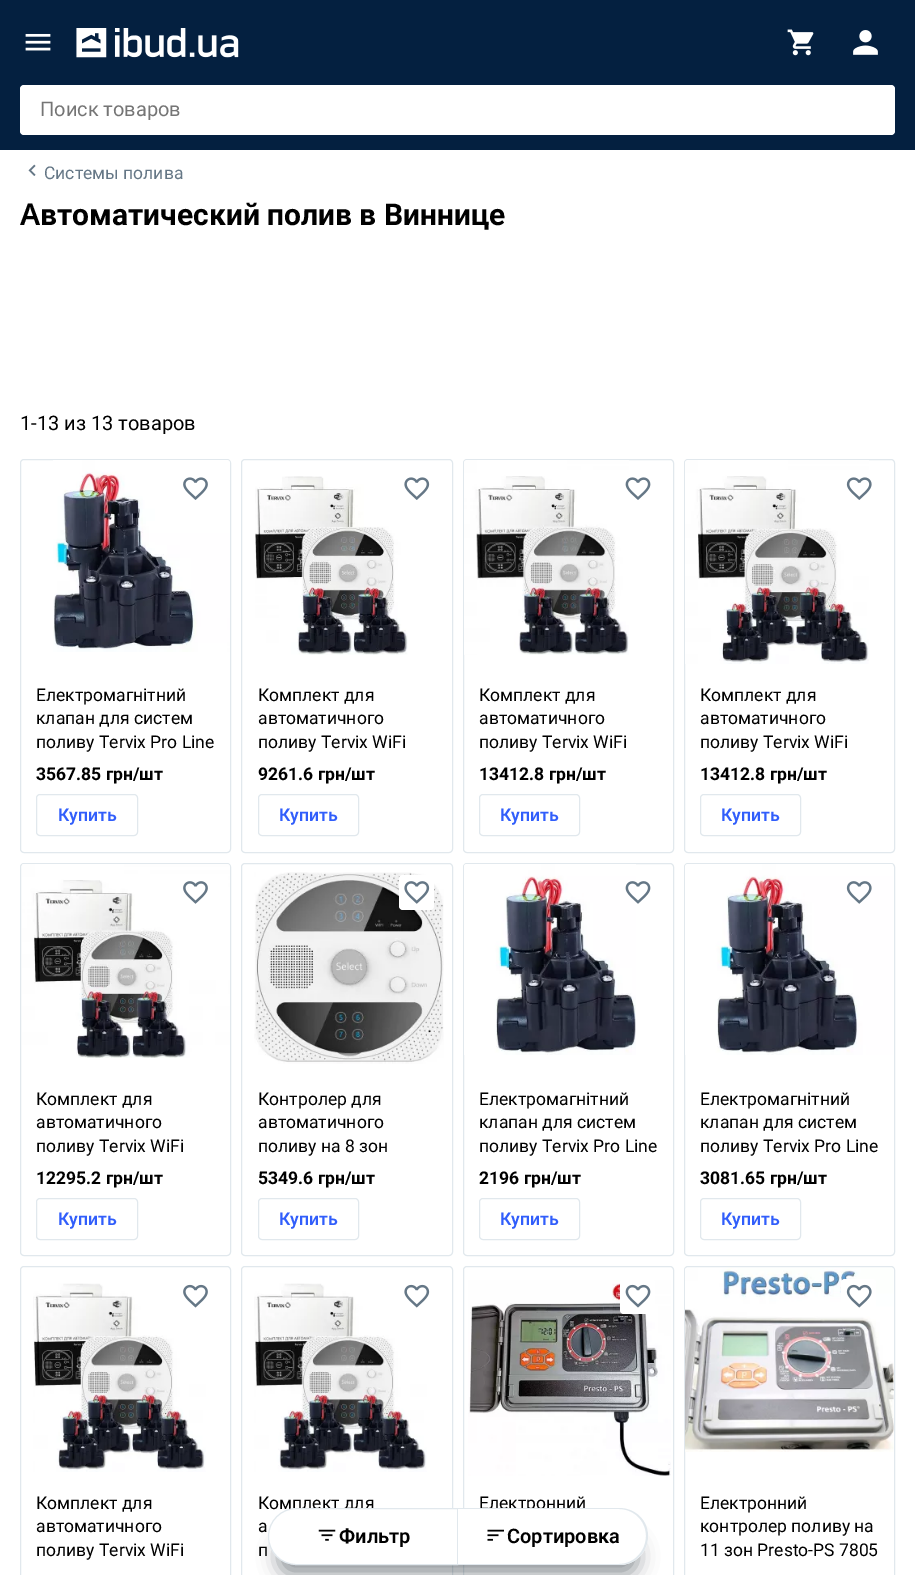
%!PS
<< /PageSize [915 1575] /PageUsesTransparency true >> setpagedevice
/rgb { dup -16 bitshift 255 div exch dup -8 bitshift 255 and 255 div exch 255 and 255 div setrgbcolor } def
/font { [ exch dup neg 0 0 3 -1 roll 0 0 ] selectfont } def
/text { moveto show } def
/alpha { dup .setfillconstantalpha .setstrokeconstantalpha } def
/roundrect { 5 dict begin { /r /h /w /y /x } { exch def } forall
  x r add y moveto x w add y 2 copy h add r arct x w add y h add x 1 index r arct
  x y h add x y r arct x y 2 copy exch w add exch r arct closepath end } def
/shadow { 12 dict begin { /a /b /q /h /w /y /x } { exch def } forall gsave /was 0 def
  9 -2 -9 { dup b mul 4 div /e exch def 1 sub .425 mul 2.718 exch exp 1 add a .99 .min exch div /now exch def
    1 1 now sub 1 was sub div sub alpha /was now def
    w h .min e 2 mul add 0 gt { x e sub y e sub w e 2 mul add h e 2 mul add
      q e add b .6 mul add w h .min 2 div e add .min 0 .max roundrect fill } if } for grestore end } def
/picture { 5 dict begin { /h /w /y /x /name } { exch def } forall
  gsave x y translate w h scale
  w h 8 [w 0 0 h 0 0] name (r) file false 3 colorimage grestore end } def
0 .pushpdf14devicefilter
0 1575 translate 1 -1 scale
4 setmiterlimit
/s1 { /Roboto-Regular 20 font 16#757575 rgb } def
/s2 { /Roboto-Regular 17.5 font 16#657786 rgb } def
/s3 { /NotoSans-SemiBold 30 font 16#000000 rgb } def
/s4 { /Roboto-Bold 30 font 16#000000 rgb } def
/s5 { /Roboto-Regular 20 font 16#000000 rgb } def
/s6 { /Roboto-Regular 17.5 font 16#000000 rgb } def
/s7 { /Roboto-Bold 17.5 font 16#000000 rgb } def
/s8 { /Roboto-SemiBold 17.5 font 16#315EFB rgb } def
/s9 { /Roboto-SemiBold 20 font 16#000000 rgb } def
16#FFFFFF rgb
0 0 915 1575 rectfill
16#042040 rgb
0 0 915 150 rectfill
(pic1.raw) 25 33 26 18 picture
(pic2.raw) 76 28 163 30 picture
(pic3.raw) 787 29 27 27 picture
(pic4.raw) 853 30 25 25 picture
16#FFFFFF rgb
20 85 875 50 4 roundrect fill
s1
(Поиск товаров) 40 116 text
(pic5.raw) 28 164 8 12 picture
s2
(Системы полива) 44 179 text
s3
(А) 20 225 text
s4
(втоматический полив в Виннице) 40 225 text
s5
(1-13 из 13 товаров) 20 430 text
16#E1E8ED rgb
20.5 459.5 210 393 3.5 roundrect stroke
(pic6.raw) 53 460 177 192 picture
(pic7.raw) 183 477 25 23 picture
s6
(Електромагнітний) 36 701 text
(клапан для систем) 36 724 text
(поливу Tervix Pro Line) 36 748 text
s7
(3567.85 грн/шт) 36 780 text
16#E1E8ED rgb
36.5 794.5 101 41 3.5 roundrect stroke
s8
(Купить) 58 821 text
16#E1E8ED rgb
241.5 459.5 211 393 3.5 roundrect stroke
(pic8.raw) 255 476 153 179 picture
(pic9.raw) 404 477 26 23 picture
s6
(Комплект для) 258 701 text
(автоматичного) 258 724 text
(поливу Tervix WiFi) 258 748 text
s7
(9261.6 грн/шт) 258 780 text
16#E1E8ED rgb
258.5 794.5 100 41 3.5 roundrect stroke
s8
(Купить) 279 821 text
16#E1E8ED rgb
463.5 459.5 210 393 3.5 roundrect stroke
(pic10.raw) 464 460 165 195 picture
(pic11.raw) 625 477 26 23 picture
s6
(Комплект для) 479 701 text
(автоматичного) 479 724 text
(поливу Tervix WiFi) 479 748 text
s7
(13412.8 грн/шт) 479 780 text
16#E1E8ED rgb
479.5 794.5 100 41 3.5 roundrect stroke
s8
(Купить) 500 821 text
16#E1E8ED rgb
684.5 459.5 210 393 3.5 roundrect stroke
(pic12.raw) 685 460 184 204 picture
(pic13.raw) 846 477 26 23 picture
s6
(Комплект для) 700 701 text
(автоматичного) 700 724 text
(поливу Tervix WiFi) 700 748 text
s7
(13412.8 грн/шт) 700 780 text
16#E1E8ED rgb
700.5 794.5 100 41 3.5 roundrect stroke
s8
(Купить) 721 821 text
16#E1E8ED rgb
20.5 863.5 210 392 3.5 roundrect stroke
(pic14.raw) 22 864 208 194 picture
(pic15.raw) 183 881 25 23 picture
s6
(Комплект для) 36 1105 text
(автоматичного) 36 1128 text
(поливу Tervix WiFi) 36 1152 text
s7
(12295.2 грн/шт) 36 1184 text
16#E1E8ED rgb
36.5 1198.5 101 41 3.5 roundrect stroke
s8
(Купить) 58 1225 text
16#E1E8ED rgb
241.5 863.5 211 392 3.5 roundrect stroke
(pic16.raw) 254 872 190 192 picture
16#FFFFFF rgb
399 875 35 35 4 roundrect fill
(pic17.raw) 404 881 26 23 picture
s6
(Контролер для) 258 1105 text
(автоматичного) 258 1128 text
(поливу на 8 зон) 258 1152 text
s7
(5349.6 грн/шт) 258 1184 text
16#E1E8ED rgb
258.5 1198.5 100 41 3.5 roundrect stroke
s8
(Купить) 279 1225 text
16#E1E8ED rgb
463.5 863.5 210 392 3.5 roundrect stroke
(pic18.raw) 464 864 172 191 picture
(pic19.raw) 625 881 26 23 picture
s6
(Електромагнітний) 479 1105 text
(клапан для систем) 479 1128 text
(поливу Tervix Pro Line) 479 1152 text
s7
(2196 грн/шт) 479 1184 text
16#E1E8ED rgb
479.5 1198.5 100 41 3.5 roundrect stroke
s8
(Купить) 500 1225 text
16#E1E8ED rgb
684.5 863.5 210 392 3.5 roundrect stroke
(pic20.raw) 685 864 208 191 picture
(pic21.raw) 846 881 26 23 picture
s6
(Електромагнітний) 700 1105 text
(клапан для систем) 700 1128 text
(поливу Tervix Pro Line) 700 1152 text
s7
(3081.65 грн/шт) 700 1184 text
16#E1E8ED rgb
700.5 1198.5 100 41 3.5 roundrect stroke
s8
(Купить) 721 1225 text
16#E1E8ED rgb
20.5 1266.5 210 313 3.5 roundrect stroke
(pic22.raw) 33 1283 173 189 picture
(pic23.raw) 183 1284 25 24 picture
s6
(Комплект для) 36 1509 text
(автоматичного) 36 1532 text
(поливу Tervix WiFi) 36 1556 text
16#E1E8ED rgb
241.5 1266.5 211 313 3.5 roundrect stroke
(pic24.raw) 254 1283 173 189 picture
(pic25.raw) 404 1284 26 24 picture
s6
(Комплект для) 258 1509 text
(а) 258 1532 text
(п) 258 1556 text
16#E1E8ED rgb
463.5 1266.5 210 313 3.5 roundrect stroke
(pic27.raw) 468 1280 203 196 picture
16#FFFFFF rgb
620 1279 35 35 4 roundrect fill
(pic26.raw) 625 1284 26 24 picture
s6
(Електронний) 479 1509 text
16#E1E8ED rgb
684.5 1266.5 210 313 3.5 roundrect stroke
(pic28.raw) 685 1268 209 184 picture
16#FFFFFF rgb
841 1279 35 35 4 roundrect fill
(pic29.raw) 846 1284 26 24 picture
s6
(Електронний) 700 1509 text
(контролер поливу на) 700 1532 text
(11 зон Presto-PS 7805) 700 1556 text
16#263238 rgb
278 1538 360 37 18.5 10 0.5 shadow
16#FFFFFF rgb
296.5 1508.5 moveto 457.5 1508.5 lineto 457.5 1564.5 lineto 296.5 1564.5 lineto 281 1564.5 268.5 1552 268.5 1536.5 curveto 268.5 1521 281 1508.5 296.5 1508.5 curveto closepath gsave fill grestore
16#E1E8ED rgb
stroke
(pic30.raw) 318 1529 18 12 picture
s9
(Фильтр) 339 1543 text
16#FFFFFF rgb
458 1508 moveto 619.5 1508 lineto 635 1508 648 1521 648 1536.5 curveto 648 1552 635 1565 619.5 1565 curveto 458 1565 lineto closepath fill
16#E1E8ED rgb
458 1508 moveto 619 1508 lineto 635 1508 648 1520 648 1536 curveto 648 1552 635 1565 619 1565 curveto 458 1565 lineto closepath 458 1509 moveto 619 1509 lineto 634 1509 646 1521 646 1536 curveto 646 1551 634 1564 619 1564 curveto 458 1564 lineto closepath eofill
(pic31.raw) 487 1529 17 12 picture
s9
(Сортировка) 507 1543 text
.poppdf14devicefilter showpage
